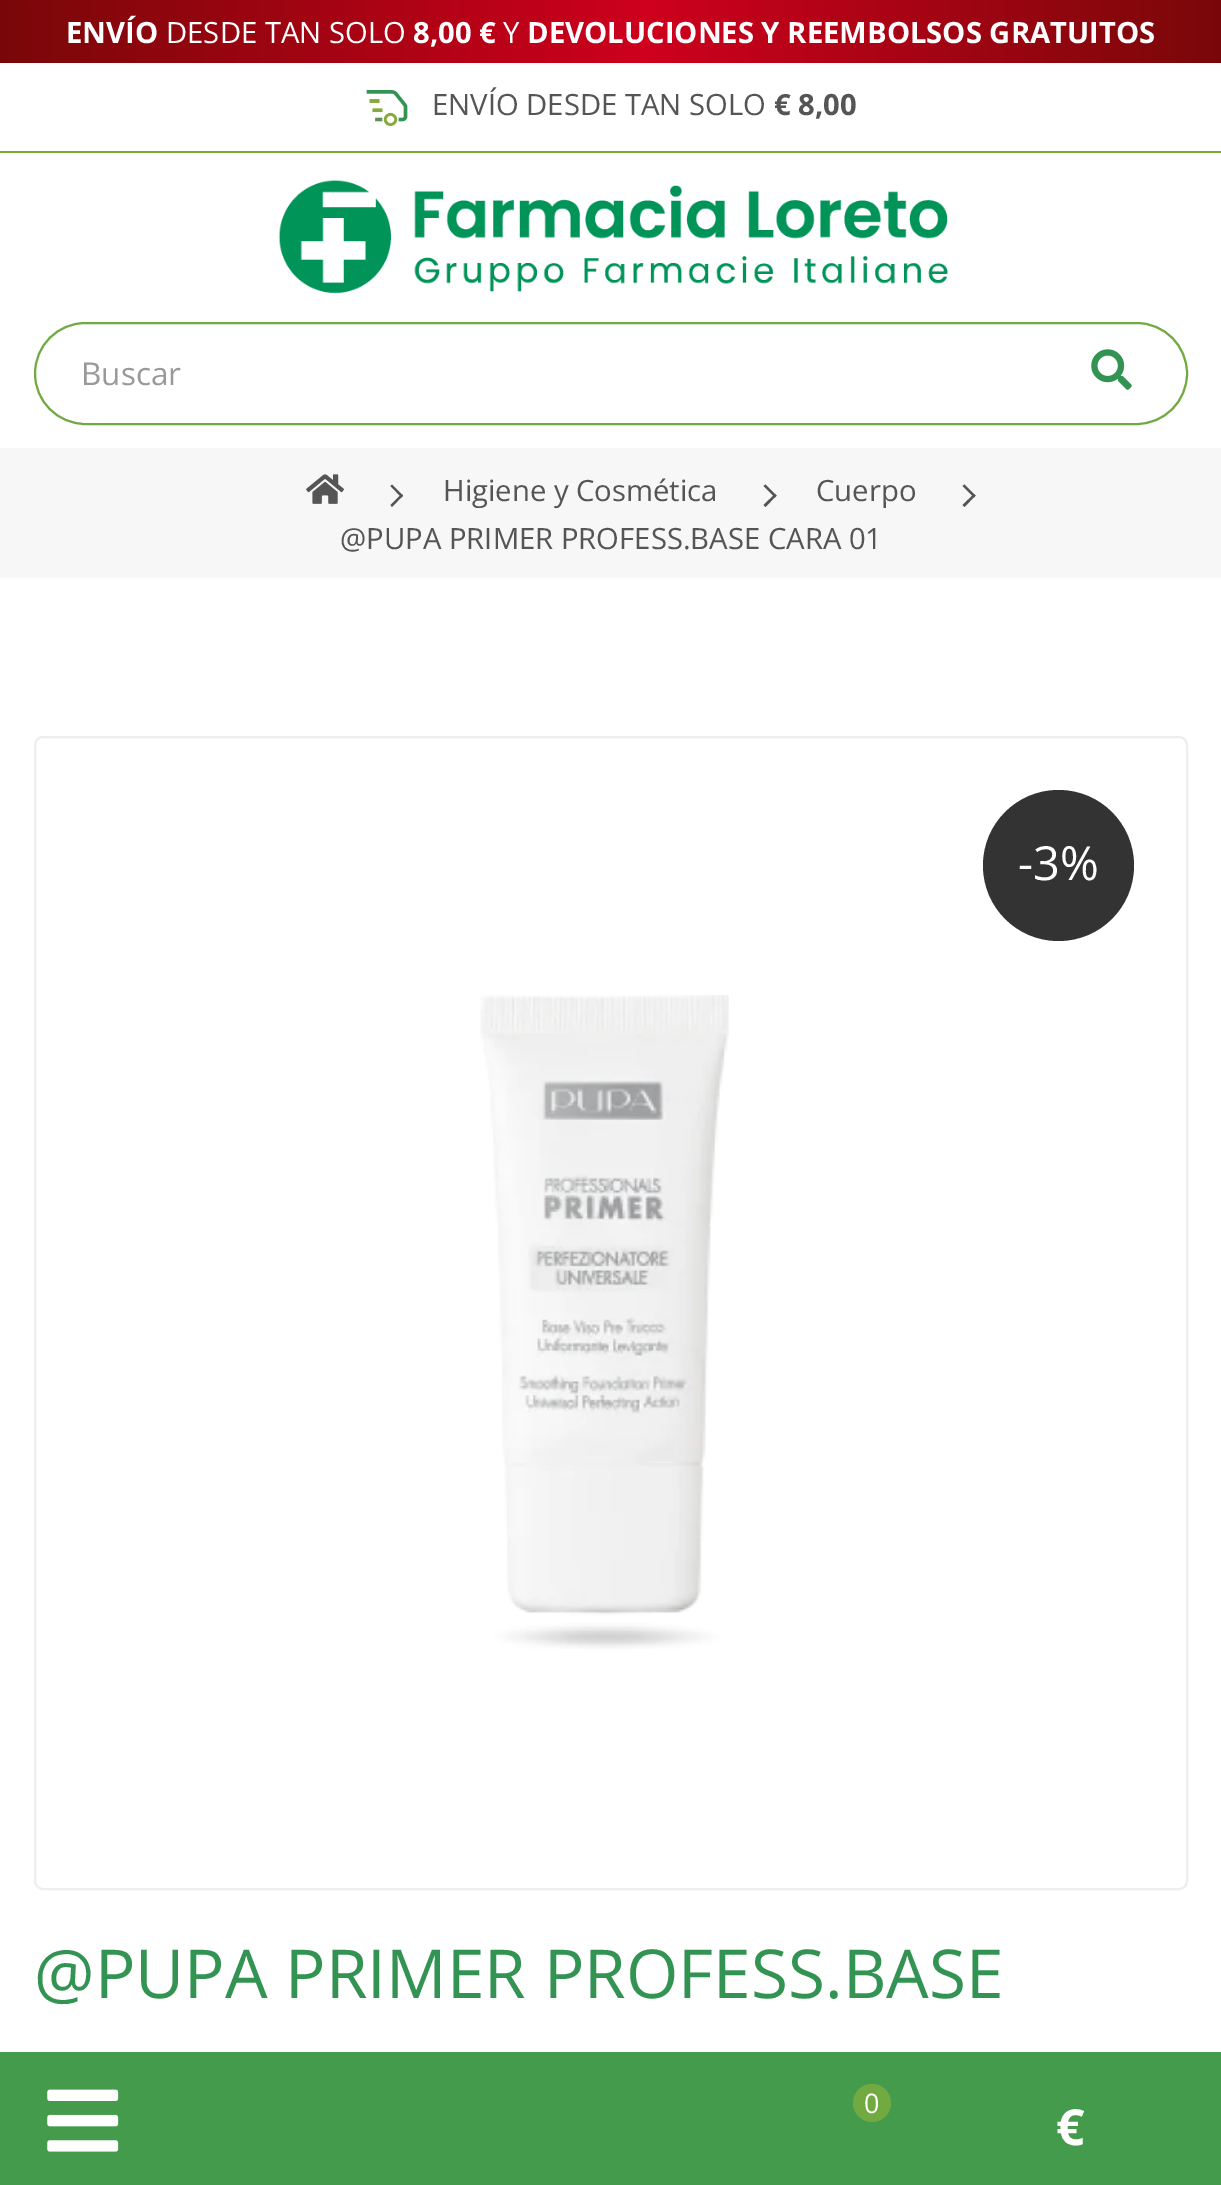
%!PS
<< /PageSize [1221 2185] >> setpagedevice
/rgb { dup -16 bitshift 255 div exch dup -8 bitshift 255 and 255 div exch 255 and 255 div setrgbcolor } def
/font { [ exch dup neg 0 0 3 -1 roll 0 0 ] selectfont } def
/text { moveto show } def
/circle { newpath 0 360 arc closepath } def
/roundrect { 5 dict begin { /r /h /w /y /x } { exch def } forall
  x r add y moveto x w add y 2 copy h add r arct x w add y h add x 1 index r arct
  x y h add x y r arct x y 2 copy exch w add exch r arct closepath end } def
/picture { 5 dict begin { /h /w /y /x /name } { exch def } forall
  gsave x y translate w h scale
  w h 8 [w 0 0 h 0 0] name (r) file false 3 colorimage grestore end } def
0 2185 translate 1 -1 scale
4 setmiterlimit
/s1 { /OpenSans-Bold 29.25 font 16#FFFFFF rgb } def
/s2 { /OpenSans-Regular 29.25 font 16#FFFFFF rgb } def
/s3 { /OpenSans-Regular 29.25 font 16#555555 rgb } def
/s4 { /OpenSans-Bold 29.25 font 16#555555 rgb } def
/s5 { /OpenSans-Bold 50 font 16#FFFFFF rgb } def
/s6 { /OpenSans-Regular 31.5 font 16#999999 rgb } def
/s7 { /OpenSans-Regular 27 font 16#FFFFFF rgb } def
/s8 { /OpenSans-Regular 47 font 16#FFFFFF rgb } def
/s9 { /OpenSans-Regular 67.5 font 16#329353 rgb } def
16#FFFFFF rgb
0 0 1221 2185 rectfill
gsave 0 0 moveto 1221 0 lineto 1221 63 lineto 0 63 lineto closepath clip newpath
<< /ShadingType 2 /ColorSpace /DeviceRGB /Coords [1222 31 0 32] /Extend [true true] /Function << /FunctionType 3 /Domain [0 1] /Functions [<< /FunctionType 2 /Domain [0 1] /C0 [0.475 0.031 0.035] /C1 [0.808 0 0.114] /N 1 >> << /FunctionType 2 /Domain [0 1] /C0 [0.808 0 0.114] /C1 [0.475 0.031 0.035] /N 1 >>] /Bounds [0.47] /Encode [0 1 0 1] >> >> shfill grestore
s1
(ENVÍO) 66 43 text
s2
(DESDE TAN SOLO) 166 43 text
s1
(8,00 €) 413 43 text
s2
(Y) 503 43 text
s1
(DEVOLUCIONES Y REEMBOLSOS GRATUITOS) 527 43 text
16#79AC2B rgb
0 151 1221 2 rectfill
(pic1.raw) 366 90 42 36 picture
s3
(ENVÍO DESDE TAN SOLO) 432 115 text
s4
(€ 8,00) 774 115 text
16#449B4C rgb
0 2052 1221 133 rectfill
s5
(€) 1056 2145 text
(pic2.raw) 278 180 670 114 picture
16#72AA42 rgb
2 setlinewidth
35 323 1152 101 50.5 roundrect stroke
s6
(Buscar) 81 385 text
(pic3.raw) 1091 349 41 41 picture
(pic4.raw) 47 2089 72 63 picture
16#72AA42 rgb
872 2103 19 circle fill
s7
(0) 864 2113 text
16#F7F7F7 rgb
0 448 1221 130 rectfill
(pic5.raw) 306 474 38 30 picture
16#555555 rgb
390.5 486 moveto 392 484.5 lineto 403 495.5 lineto 401.5 497.5 lineto closepath fill
390.5 505 moveto 401.5 494 lineto 403 495.5 lineto 392 507 lineto closepath fill
s3
(Higiene y Cosmética) 443 501 text
763.5 486 moveto 765.5 484.5 lineto 776.5 495.5 lineto 775 497.5 lineto closepath fill
763.5 505 moveto 775 494 lineto 776.5 495.5 lineto 765.5 507 lineto closepath fill
(Cuerpo) 816 501 text
962.5 486 moveto 964.5 484.5 lineto 975.5 495.5 lineto 974 497.5 lineto closepath fill
962.5 505 moveto 974 494 lineto 975.5 495.5 lineto 964.5 507 lineto closepath fill
(@PUPA PRIMER PROFESS.BASE CARA 01) 340 549 text
16#EEEEEE rgb
35 737 1152 1152 8 roundrect stroke
(pic6.raw) 480 995 249 654 picture
16#333333 rgb
1058.5 865.5 75.5 circle fill
s8
(-3%) 1018 880 text
s9
(@PUPA PRIMER PROFESS.BASE) 34 1998 text
showpage
